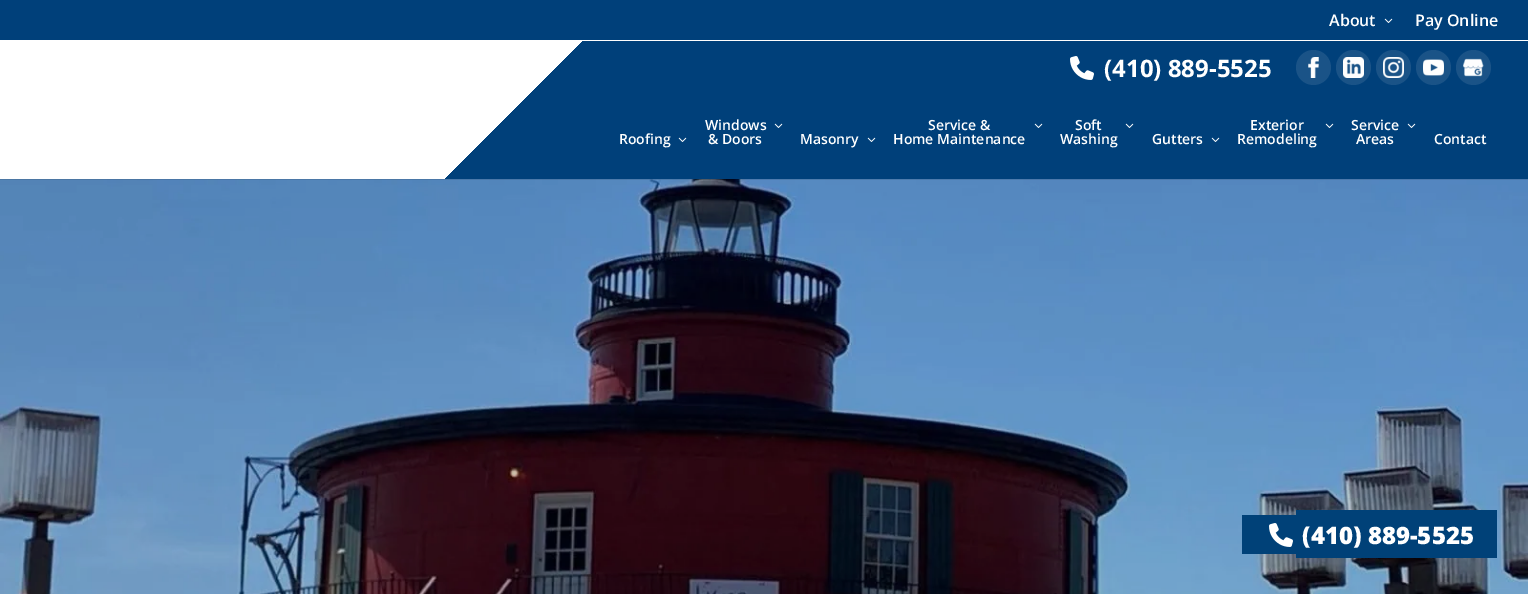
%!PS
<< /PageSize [1528 594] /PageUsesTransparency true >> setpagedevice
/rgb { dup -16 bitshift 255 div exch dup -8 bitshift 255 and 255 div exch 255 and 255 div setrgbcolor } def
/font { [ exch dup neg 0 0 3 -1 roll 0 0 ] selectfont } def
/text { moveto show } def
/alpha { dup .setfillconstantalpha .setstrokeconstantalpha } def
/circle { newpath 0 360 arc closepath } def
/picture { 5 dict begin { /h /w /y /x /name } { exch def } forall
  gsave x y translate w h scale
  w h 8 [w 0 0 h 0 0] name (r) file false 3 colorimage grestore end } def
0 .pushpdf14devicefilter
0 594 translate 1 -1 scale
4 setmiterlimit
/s1 { /OpenSans-SemiBold 16 font 16#FFFFFF rgb } def
/s2 { /OpenSans-Bold 24 font 16#FFFFFF rgb } def
/s3 { /OpenSans-SemiBold 14 font 16#FFFFFF rgb } def
/s4 { /OpenSans-ExtraBold 24 font 16#FFFFFF rgb } def
16#FFFFFF rgb
0 0 1528 594 rectfill
16#00407A rgb
0 0 1528 40 rectfill
s1
(About) 1329 26 text
(pic1.raw) 1384 18 9 5 picture
(Pay Online) 1415 26 text
(pic8.raw) 0 179 1528 415 picture
0.1 alpha
16#000000 rgb
0 179 1528 1 rectfill
1 alpha
gsave 445 41 moveto 1528 41 lineto 1528 179 lineto 445 179 lineto closepath clip newpath
<< /ShadingType 2 /ColorSpace /DeviceRGB /Coords [347 -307 1181 526] /Extend [true true] /Function << /FunctionType 3 /Domain [0 1] /Functions [<< /FunctionType 2 /Domain [0 1] /C0 [1 1 1] /C1 [1 1 1] /N 1 >> << /FunctionType 2 /Domain [0 1] /C0 [0 0.251 0.478] /C1 [0 0.251 0.478] /N 1 >>] /Bounds [0.35] /Encode [0 1 0 1] >> >> shfill grestore
(pic2.raw) 1070 56 24 24 picture
s2
(\(410\) 889-5525) 1104 77 text
16#1A5387 rgb
1313.5 67.5 17.5 circle fill
(pic3.raw) 1308 57 11 21 picture
1353.5 67.5 17.5 circle fill
(pic4.raw) 1343 57 21 21 picture
1393.5 67.5 17.5 circle fill
(pic5.raw) 1383 57 21 21 picture
1433.5 67.5 17.5 circle fill
(pic6.raw) 1423 59 21 17 picture
1473.5 67.5 17.5 circle fill
(pic7.raw) 1463 58 21 19 picture
s3
(Roofing) 619 144 text
(pic1.raw) 678 137 9 5 picture
(Windows) 705 130 text
(pic1.raw) 774 123 9 5 picture
(& Doors) 708 144 text
(Masonry) 800 144 text
(pic1.raw) 867 137 9 5 picture
(Service &) 928 130 text
(pic1.raw) 1034 123 9 5 picture
(Home Maintenance) 893 144 text
(Soft) 1075 130 text
(pic1.raw) 1125 123 9 5 picture
(Washing) 1060 144 text
(Gutters) 1152 144 text
(pic1.raw) 1211 137 9 5 picture
(Exterior) 1250 130 text
(pic1.raw) 1325 123 9 5 picture
(Remodeling) 1237 144 text
(Service) 1351 130 text
(pic1.raw) 1407 123 9 5 picture
(Areas) 1356 144 text
(Contact) 1434 144 text
16#004178 rgb
1242 515 54 39 rectfill
1296 510 201 48 rectfill
(pic9.raw) 1269 523 24 24 picture
s4
(\(410\) 889-5525) 1302 544 text
.poppdf14devicefilter showpage
